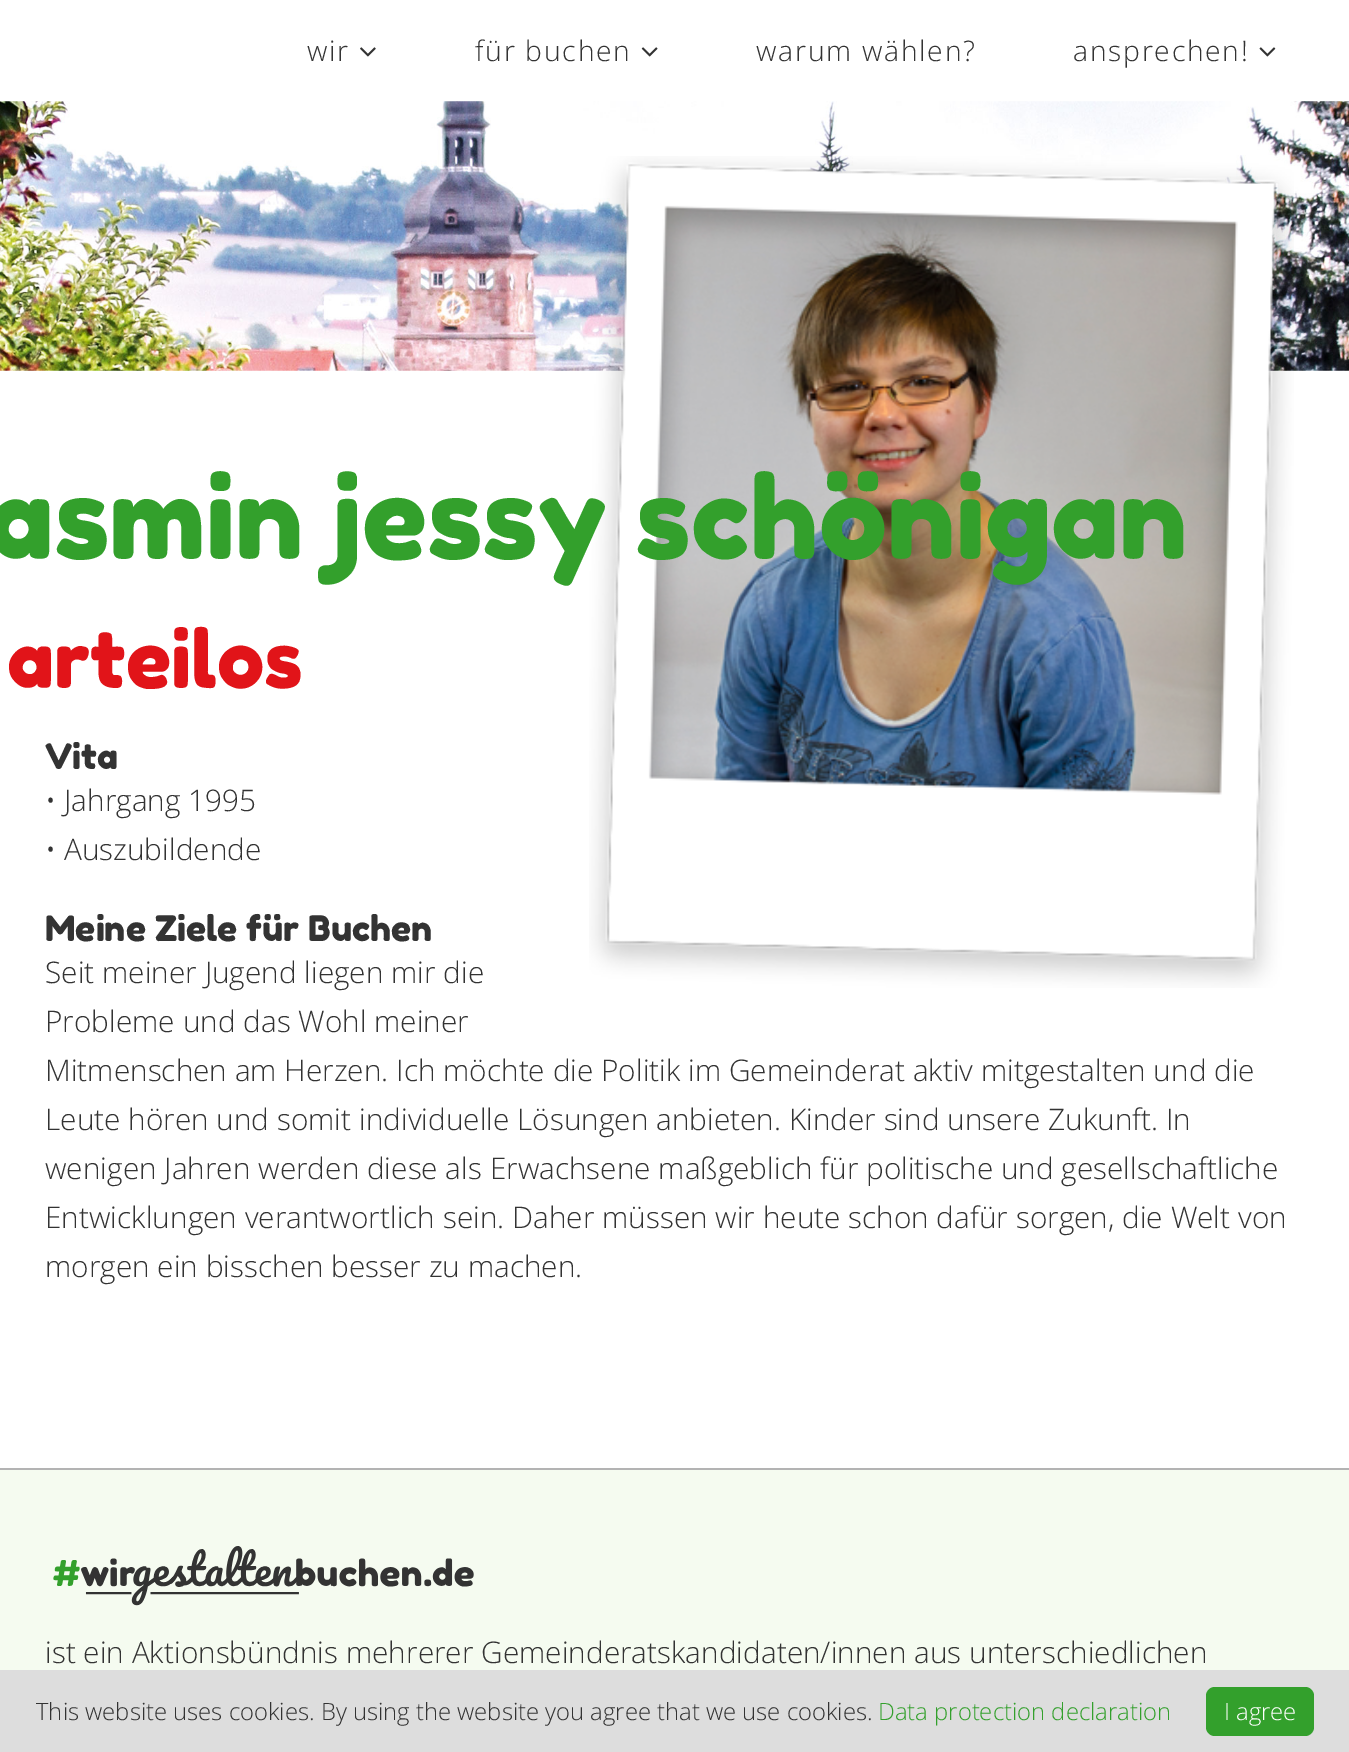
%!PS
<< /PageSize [1349 1752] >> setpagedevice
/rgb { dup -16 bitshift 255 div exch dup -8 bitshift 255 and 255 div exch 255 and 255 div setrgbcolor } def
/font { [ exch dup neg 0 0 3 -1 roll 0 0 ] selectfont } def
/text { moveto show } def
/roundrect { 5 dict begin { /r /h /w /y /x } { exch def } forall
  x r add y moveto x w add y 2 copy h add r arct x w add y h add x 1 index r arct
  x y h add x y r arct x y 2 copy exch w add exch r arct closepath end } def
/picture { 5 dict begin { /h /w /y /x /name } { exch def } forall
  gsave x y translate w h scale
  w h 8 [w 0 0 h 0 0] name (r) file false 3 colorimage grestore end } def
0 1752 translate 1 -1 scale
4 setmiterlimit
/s1 { /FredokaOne-Regular 113.75 font 16#33A02C rgb } def
/s2 { /FredokaOne-Regular 79 font 16#E11419 rgb } def
/s3 { /FredokaOne-Regular 35 font 16#333333 rgb } def
/s4 { /OpenSans-Light 29.75 font 16#333333 rgb } def
/s5 { /OpenSans-Light 23.8 font 16#333333 rgb } def
/s6 { /OpenSans-Light 23.8 font 16#33A02C rgb } def
/s7 { /OpenSans-Light 23.8 font 16#FFFFFF rgb } def
16#FFFFFF rgb
0 0 1349 1752 rectfill
/OpenSans-Light 28.25 font
16#333333 rgb
307 61 moveto 1.75 0 (wir) ashow
(pic1.raw) 360 47 16 10 picture
475 61 moveto 1.75 0 (für buchen) ashow
(pic2.raw) 641 47 17 10 picture
756 61 moveto 1.75 0 (warum wählen?) ashow
1073 61 moveto 1.75 0 (ansprechen!) ashow
(pic3.raw) 1259 47 17 10 picture
(pic4.raw) 0 101 1349 270 picture
(pic5.raw) 589 156 705 832 picture
s1
(asmin jessy schönigan) -14 559 text
s2
(arteilos) 7 688 text
s3
(Vita) 45 769 text
s4
(• Jahrgang 1995) 45 811 text
(• Auszubildende) 45 860 text
s3
(Meine Ziele für Buchen) 45 941 text
s4
(Seit meiner Jugend liegen mir die) 45 983 text
(Probleme und das Wohl meiner) 45 1032 text
(Mitmenschen am Herzen. Ich möchte die Politik im Gemeinderat aktiv mitgestalten und die) 45 1081 text
(Leute hören und somit individuelle Lösungen anbieten. Kinder sind unsere Zukunft. In) 45 1130 text
(wenigen Jahren werden diese als Erwachsene maßgeblich für politische und gesellschaftliche) 45 1179 text
(Entwicklungen verantwortlich sein. Daher müssen wir heute schon dafür sorgen, die Welt von) 45 1228 text
(morgen ein bisschen besser zu machen.) 45 1277 text
16#F5FBF0 rgb
0 1470 1349 200 rectfill
16#B3B3B3 rgb
0 1468 1349 2 rectfill
(pic6.raw) 53 1546 421 60 picture
s4
(ist ein Aktionsbündnis mehrerer Gemeinderatskandidaten/innen aus unterschiedlichen) 45 1663 text
16#DDDDDD rgb
0 1670 1349 82 rectfill
s5
(This website uses cookies. By using the website you agree that we use cookies.) 36 1720 text
s6
(Data protection declaration) 878 1720 text
1206 1687 108 49 9 roundrect fill
s7
(I agree) 1224 1720 text
showpage
